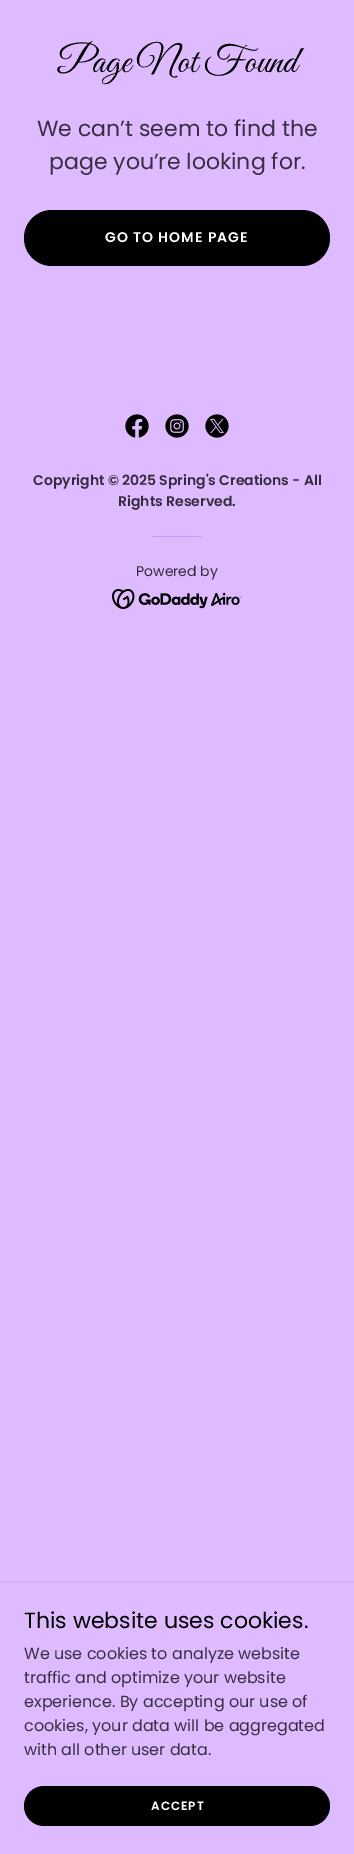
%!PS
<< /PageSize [354 1854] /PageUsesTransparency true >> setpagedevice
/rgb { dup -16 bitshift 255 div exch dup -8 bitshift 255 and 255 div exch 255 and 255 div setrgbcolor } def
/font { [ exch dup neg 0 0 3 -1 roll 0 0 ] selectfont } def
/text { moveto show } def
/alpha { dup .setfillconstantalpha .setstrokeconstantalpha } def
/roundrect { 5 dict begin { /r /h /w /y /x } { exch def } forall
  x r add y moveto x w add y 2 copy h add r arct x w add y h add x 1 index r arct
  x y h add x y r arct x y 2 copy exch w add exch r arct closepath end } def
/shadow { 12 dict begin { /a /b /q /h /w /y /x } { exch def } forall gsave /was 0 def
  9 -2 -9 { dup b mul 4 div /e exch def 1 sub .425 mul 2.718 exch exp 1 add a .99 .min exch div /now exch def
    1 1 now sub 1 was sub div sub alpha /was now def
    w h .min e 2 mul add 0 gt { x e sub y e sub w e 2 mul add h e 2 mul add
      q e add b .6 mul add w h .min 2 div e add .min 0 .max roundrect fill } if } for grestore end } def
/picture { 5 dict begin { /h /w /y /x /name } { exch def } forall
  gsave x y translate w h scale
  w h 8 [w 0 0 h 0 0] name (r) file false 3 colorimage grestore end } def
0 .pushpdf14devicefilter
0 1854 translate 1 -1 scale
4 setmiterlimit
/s1 { /GreatVibes-Regular 38 font 16#000000 rgb } def
/s2 { /Poppins-Regular 22 font 16#392E44 rgb } def
/s3 { /Poppins-SemiBold 14 font 16#342A3D rgb } def
/s4 { /Poppins-Regular 14 font 16#342A3D rgb } def
/s5 { /Poppins-Regular 22 font 16#000000 rgb } def
/s6 { /Poppins-Regular 16 font 16#392E44 rgb } def
16#DEBBFF rgb
0 0 354 1854 rectfill
s1
(Page Not Found) 57 72 text
s2
(We can’t seem to find the) 37 136 text
(page you’re looking for.) 49 169 text
16#000000 rgb
24 210 306 56 28 roundrect fill
/Poppins-SemiBold 14 font
16#FFFFFF rgb
105 242 moveto 1 0 (GO TO HOME PAGE) ashow
(pic1.raw) 125 414 24 24 picture
(pic2.raw) 165 414 24 24 picture
(pic3.raw) 205 414 24 24 picture
s3
(Copyright © 2025 Spring's Creations - All) 33 485 text
(Rights Reserved.) 118 506 text
16#CF95FF rgb
152 536 50 1 rectfill
s4
(Powered by) 136 576 text
(pic4.raw) 112 589 130 20 picture
gsave
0 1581 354 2 rectclip
16#000000 rgb
0 1585 354 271 0 3 0.3 shadow
grestore
s5
(This website uses cookies.) 24 1628 text
s6
(We use cookies to analyze website) 24 1659 text
(traffic and optimize your website) 24 1683 text
(experience. By accepting our use of) 24 1707 text
(cookies, your data will be aggregated) 24 1731 text
(with all other user data.) 24 1755 text
16#000000 rgb
24 1786 306 40 20 roundrect fill
/Poppins-SemiBold 12 font
16#FFFFFF rgb
151 1810 moveto 1 0 (ACCEPT) ashow
.poppdf14devicefilter showpage
